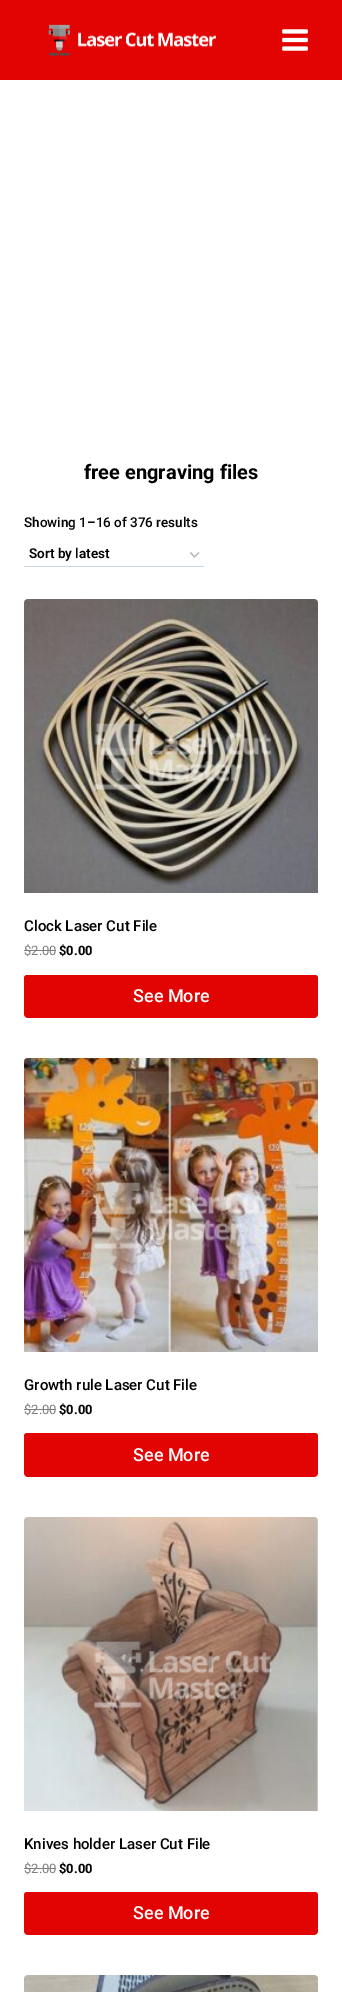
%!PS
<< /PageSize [342 1992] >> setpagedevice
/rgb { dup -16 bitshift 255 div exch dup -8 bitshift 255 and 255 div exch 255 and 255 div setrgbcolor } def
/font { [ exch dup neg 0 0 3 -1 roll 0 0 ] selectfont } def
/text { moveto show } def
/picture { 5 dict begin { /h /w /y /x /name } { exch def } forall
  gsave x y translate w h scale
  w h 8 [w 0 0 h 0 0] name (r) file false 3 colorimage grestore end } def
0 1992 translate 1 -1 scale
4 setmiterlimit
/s1 { /Roboto-Bold 20 font 16#000000 rgb } def
/s2 { /Roboto-Medium 13.5 font 16#000000 rgb } def
/s3 { /Roboto-SemiBold 13.5 font 16#000000 rgb } def
/s4 { /Roboto-Medium 15 font 16#000000 rgb } def
/s5 { /Roboto-Regular 13 font 16#808080 rgb } def
/s6 { /Roboto-Bold 13 font 16#000000 rgb } def
/s7 { /Roboto-Medium 18 font 16#FFFFFF rgb } def
16#FFFFFF rgb
0 0 342 1992 rectfill
16#E20303 rgb
0 0 342 80 rectfill
(pic1.raw) 48 24 168 32 picture
(pic2.raw) 282 29 26 22 picture
s1
(free engraving files) 84 479 text
s2
(Showing 1–16 of 376 results) 24 527 text
16#BBBBBB rgb
1.4 setlinewidth
190.5 552.5 moveto 194.5 557 lineto 199 552.5 lineto stroke
16#CBD5E0 rgb
24 566 180 1 rectfill
s3
(Sort by latest) 29 558 text
(pic3.raw) 24 599 294 294 picture
s4
(Clock Laser Cut File) 24 931 text
s5
($2.00) 24 955 text
24 950 32 1 rectfill
s6
($0.00) 59 955 text
16#E20303 rgb
27 975 moveto 315 975 lineto 316.5 975 318 976.5 318 978 curveto 318 1014 lineto 318 1016 316 1018 314 1018 curveto 28 1018 lineto 26 1018 24 1016 24 1014 curveto 24 978 lineto 24 976.5 25.5 975 27 975 curveto closepath fill
s7
(See More) 133 1002 text
(pic4.raw) 24 1058 294 294 picture
s4
(Growth rule Laser Cut File) 24 1390 text
s5
($2.00) 24 1414 text
24 1409 32 1 rectfill
s6
($0.00) 59 1414 text
16#E20303 rgb
27 1433 moveto 315 1433 lineto 316.5 1433 318 1434.5 318 1436 curveto 318 1473 lineto 318 1475 316 1477 314 1477 curveto 28 1477 lineto 26 1477 24 1475 24 1473 curveto 24 1436 lineto 24 1434.5 25.5 1433 27 1433 curveto closepath fill
s7
(See More) 133 1461 text
(pic5.raw) 24 1517 294 294 picture
s4
(Knives holder Laser Cut File) 24 1849 text
s5
($2.00) 24 1873 text
24 1868 32 1 rectfill
s6
($0.00) 59 1873 text
16#E20303 rgb
27 1892 moveto 315 1892 lineto 316.5 1892 318 1893.5 318 1895 curveto 318 1931 lineto 318 1933 316 1935 314 1935 curveto 28 1935 lineto 26 1935 24 1933 24 1931 curveto 24 1895 lineto 24 1893.5 25.5 1892 27 1892 curveto closepath fill
s7
(See More) 133 1919 text
(pic6.raw) 24 1975 294 17 picture
showpage
